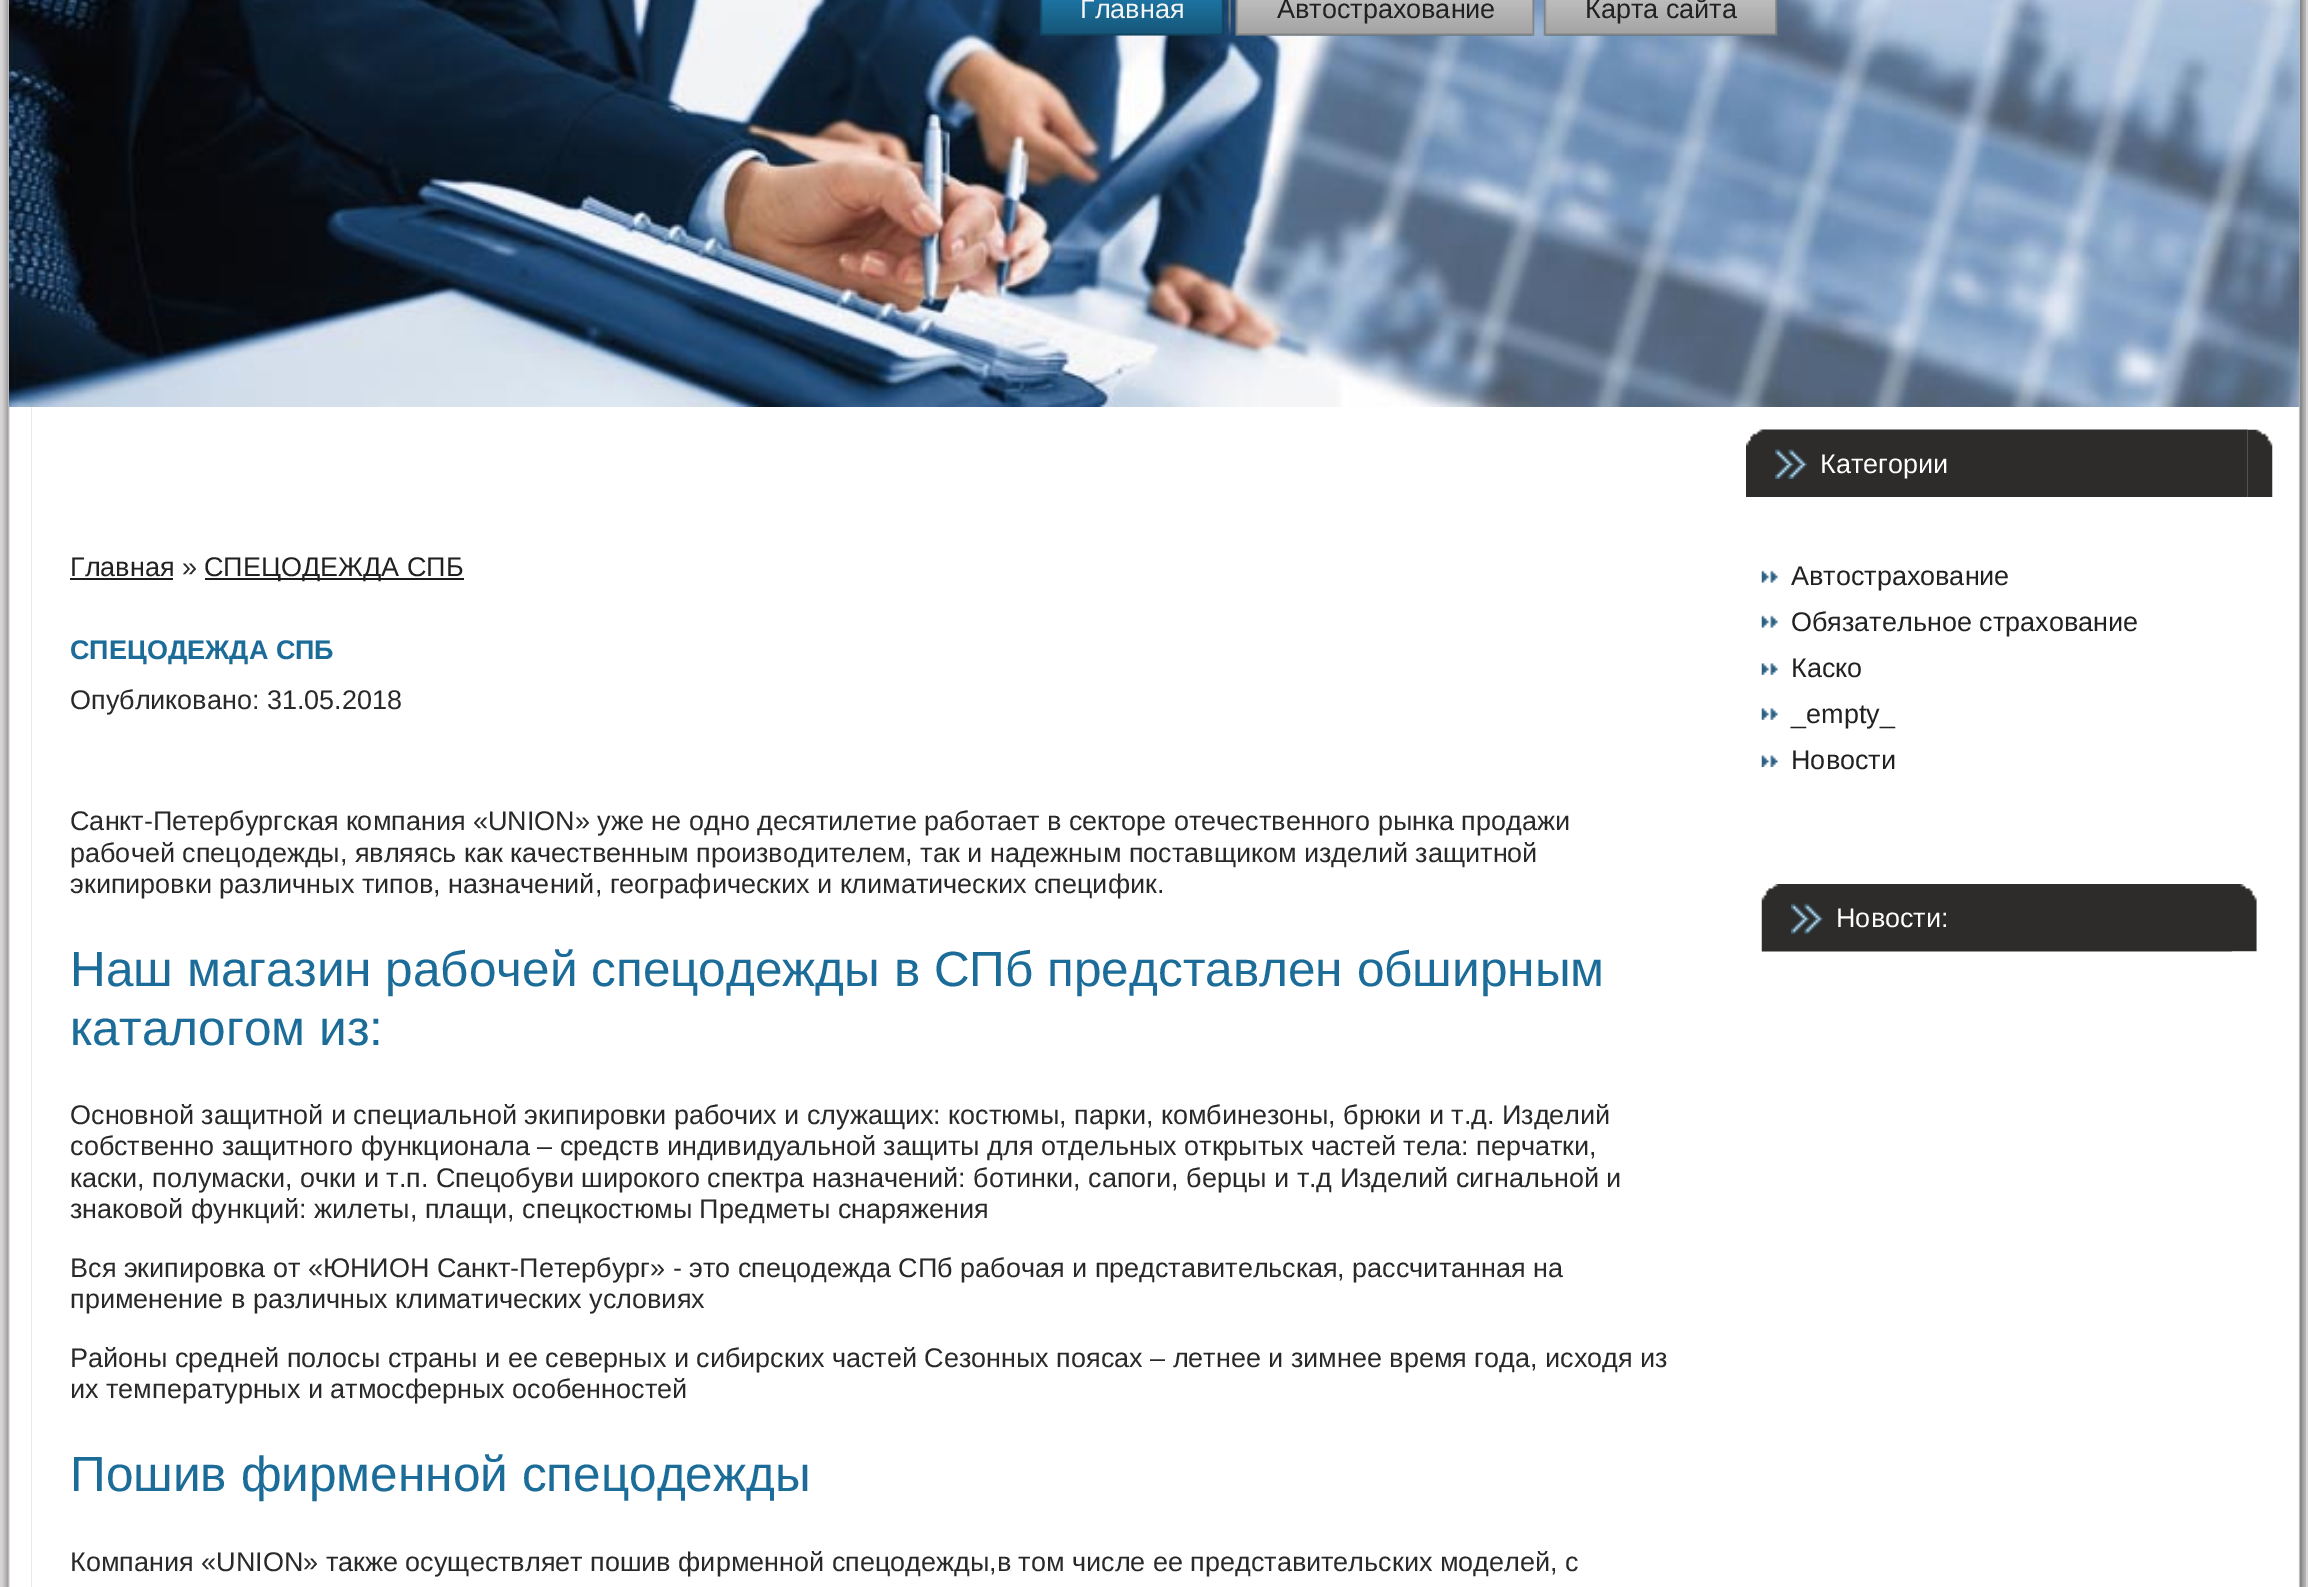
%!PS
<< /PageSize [2308 1587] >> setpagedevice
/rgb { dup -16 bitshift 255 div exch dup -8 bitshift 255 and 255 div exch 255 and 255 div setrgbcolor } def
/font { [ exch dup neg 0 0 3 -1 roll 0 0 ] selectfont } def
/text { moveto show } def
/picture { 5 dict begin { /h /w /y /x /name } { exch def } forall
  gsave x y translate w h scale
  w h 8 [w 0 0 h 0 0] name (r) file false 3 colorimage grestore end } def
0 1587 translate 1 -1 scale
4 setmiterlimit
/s1 { /LiberationSans-Regular 27 font 16#F5F5F5 rgb } def
/s2 { /LiberationSans-Regular 27 font 16#212121 rgb } def
/s3 { /LiberationSans-Regular 27 font 16#292929 rgb } def
/s4 { /LiberationSans-Bold 27 font 16#1B6C98 rgb } def
/s5 { /LiberationSans-Regular 49.5 font 16#1B6C98 rgb } def
/s6 { /LiberationSans-Regular 27 font 16#FFFFFF rgb } def
16#D6D4D5 rgb
0 0 2308 1587 rectfill
(pic1.raw) 2 0 30 1587 picture
(pic19.raw) 2277 0 29 1587 picture
(pic2.raw) 9 0 2291 407 picture
(pic3.raw) 1039 0 183 36 picture
s1
(Главная) 1080 18 text
(pic4.raw) 1222 0 2 36 picture
(pic5.raw) 1228 0 3 36 picture
(pic6.raw) 1235 0 298 36 picture
s2
(Автострахование) 1277 18 text
(pic7.raw) 1532 0 3 36 picture
(pic8.raw) 1543 0 233 36 picture
(Карта сайта) 1585 18 text
(pic9.raw) 1775 0 3 36 picture
16#FFFFFF rgb
32 407 2245 1180 rectfill
s2
(Главная) 70 576 text
16#1C1C1C rgb
70 578 103 2 rectfill
s3
(») 182 576 text
16#1C1C1C rgb
205 578 259 2 rectfill
s2
(СПЕЦОДЕЖДА СПБ) 204 576 text
s4
(СПЕЦОДЕЖДА СПБ) 70 659 text
s3
(Опубликовано: 31.05.2018) 70 709 text
(Санкт-Петербургская компания «UNION» уже не одно десятилетие работает в секторе отечественного рынка продажи) 70 830 text
(рабочей спецодежды, являясь как качественным производителем, так и надежным поставщиком изделий защитной) 70 862 text
(экипировки различных типов, назначений, географических и климатических специфик.) 70 893 text
s5
(Наш магазин рабочей спецодежды в СПб представлен обширным) 70 986 text
(каталогом из:) 70 1045 text
s3
(Основной защитной и специальной экипировки рабочих и служащих: костюмы, парки, комбинезоны, брюки и т.д. Изделий) 70 1124 text
(собственно защитного функционала – средств индивидуальной защиты для отдельных открытых частей тела: перчатки,) 70 1155 text
(каски, полумаски, очки и т.п. Спецобуви широкого спектра назначений: ботинки, сапоги, берцы и т.д Изделий сигнальной и) 70 1187 text
(знаковой функций: жилеты, плащи, спецкостюмы Предметы снаряжения) 70 1218 text
(Вся экипировка от «ЮНИОН Санкт-Петербург» - это спецодежда СПб рабочая и представительская, рассчитанная на) 70 1277 text
(применение в различных климатических условиях) 70 1308 text
(Районы средней полосы страны и ее северных и сибирских частей Сезонных поясах – летнее и зимнее время года, исходя из) 70 1367 text
(их температурных и атмосферных особенностей) 70 1398 text
s5
(Пошив фирменной спецодежды) 70 1491 text
s3
(Компания «UNION» также осуществляет пошив фирменной спецодежды,в том числе ее представительских моделей, с) 70 1571 text
(pic10.raw) 1746 429 502 68 picture
(pic11.raw) 2247 429 26 68 picture
(pic12.raw) 1775 449 32 30 picture
s6
(Категории) 1820 473 text
(pic13.raw) 1761 570 17 13 picture
s2
(Автострахование) 1791 585 text
(pic13.raw) 1761 615 17 13 picture
(Обязательное страхование) 1791 631 text
(pic14.raw) 1761 663 17 12 picture
(Каско) 1791 677 text
(pic14.raw) 1761 708 17 12 picture
(_empty_) 1791 723 text
(pic15.raw) 1761 755 17 12 picture
(Новости) 1791 769 text
(pic16.raw) 1761 884 471 68 picture
(pic17.raw) 2232 884 25 68 picture
(pic18.raw) 1791 903 32 31 picture
s6
(Новости:) 1836 927 text
showpage
